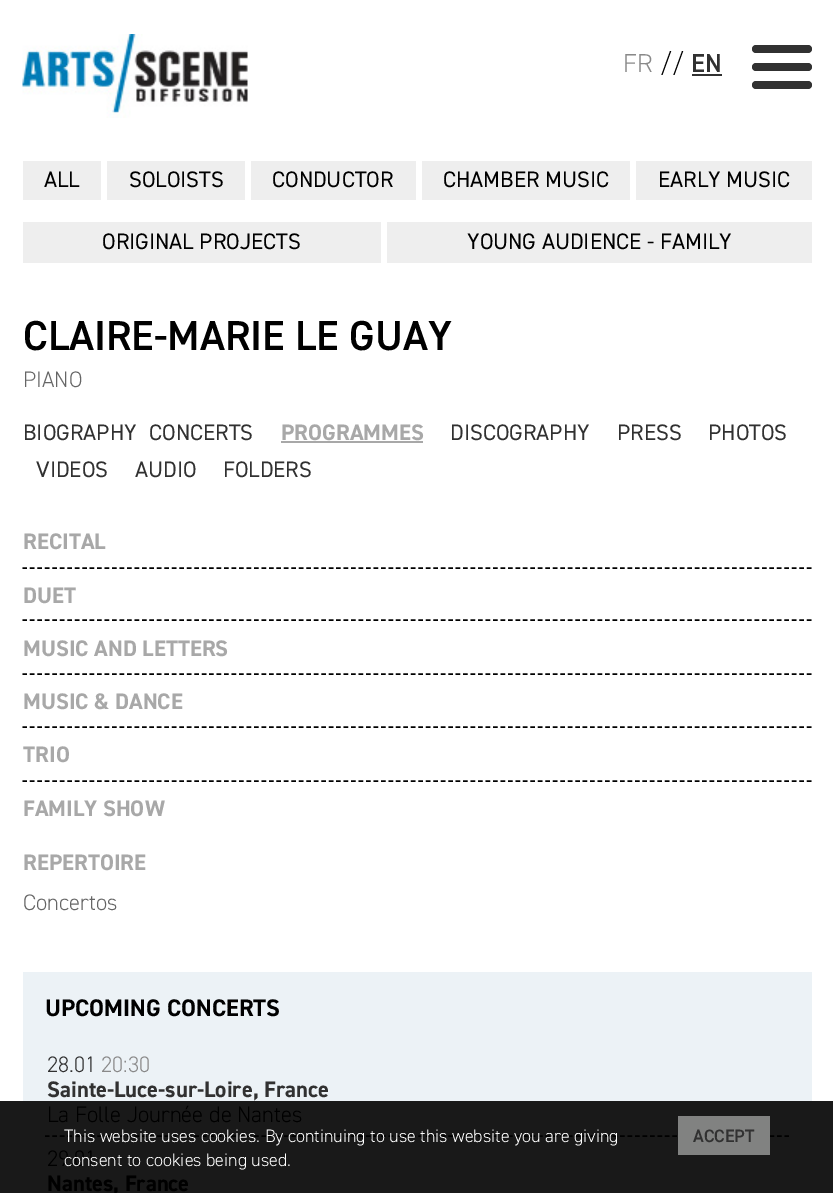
%!PS
<< /PageSize [833 1193] >> setpagedevice
/rgb { dup -16 bitshift 255 div exch dup -8 bitshift 255 and 255 div exch 255 and 255 div setrgbcolor } def
/font { [ exch dup neg 0 0 3 -1 roll 0 0 ] selectfont } def
/text { moveto show } def
/roundrect { 5 dict begin { /r /h /w /y /x } { exch def } forall
  x r add y moveto x w add y 2 copy h add r arct x w add y h add x 1 index r arct
  x y h add x y r arct x y 2 copy exch w add exch r arct closepath end } def
/picture { 5 dict begin { /h /w /y /x /name } { exch def } forall
  gsave x y translate w h scale
  w h 8 [w 0 0 h 0 0] name (r) file false 3 colorimage grestore end } def
0 1193 translate 1 -1 scale
4 setmiterlimit
/s1 { /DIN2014-Light 26 font 16#898989 rgb } def
/s2 { /DIN2014-Light 26 font 16#000000 rgb } def
/s3 { /DIN2014-SemiBold 26 font 16#313131 rgb } def
/s4 { /DIN2014-Regular 22.5 font 16#000000 rgb } def
/s5 { /DIN2014-SemiBold 42 font 16#000000 rgb } def
/s6 { /DIN2014-Light 22.5 font 16#666666 rgb } def
/s7 { /DIN2014-Regular 22.5 font 16#313131 rgb } def
/s8 { /DIN2014-Bold 22.5 font 16#A8A8A8 rgb } def
/s9 { /DIN2014-Bold 24 font 16#000000 rgb } def
/s10 { /DIN2014-Light 22.5 font 16#313131 rgb } def
/s11 { /DIN2014-Light 22.5 font 16#898989 rgb } def
/s12 { /DIN2014-Bold 22.5 font 16#313131 rgb } def
/s13 { /DIN2014-Light 22.5 font 16#000000 rgb } def
/s14 { /DIN2014-Bold 22.5 font 16#000000 rgb } def
/s15 { /DIN2014-Light 18 font 16#FFFFFF rgb } def
/s16 { /DIN2014-SemiBold 18 font 16#313131 rgb } def
16#FFFFFF rgb
0 0 833 1193 rectfill
16#191919 rgb
0 1101 833 92 rectfill
(pic1.raw) 22 34 226 84 picture
s1
(FR) 623 72 text
s2
(//) 660 72 text
s3
(EN) 691 72 text
692 74 30 2 rectfill
752 45 60 8 4 roundrect fill
752 63 60 8 4 roundrect fill
752 81 60 8 4 roundrect fill
16#EEEEEE rgb
23 161 78 39 rectfill
s4
(ALL) 44 187 text
16#EEEEEE rgb
107 161 138 39 rectfill
s4
(SOLOISTS) 129 187 text
16#EEEEEE rgb
251 161 165 39 rectfill
s4
(CONDUCTOR) 272 187 text
16#EEEEEE rgb
422 161 208 39 rectfill
s4
(CHAMBER MUSIC) 443 187 text
16#EEEEEE rgb
636 161 176 39 rectfill
s4
(EARLY MUSIC) 658 187 text
16#EEEEEE rgb
23 222 358 41 rectfill
s4
(ORIGINAL PROJECTS) 102 249 text
16#EEEEEE rgb
387 222 425 41 rectfill
s4
(YOUNG AUDIENCE - FAMILY) 467 249 text
s5
(CLAIRE-MARIE LE GUAY) 23 350 text
s6
(PIANO) 23 387 text
s7
(BIOGRAPHY) 23 440 text
(CONCERTS) 149 440 text
s8
(PROGRAMMES) 281 440 text
281 441 142 2 rectfill
s7
(DISCOGRAPHY) 450 440 text
(PRESS) 617 440 text
(PHOTOS) 708 440 text
(VIDEOS) 36 477 text
(AUDIO) 135 477 text
(FOLDERS) 223 477 text
s8
(RECITAL) 23 549 text
16#000000 rgb
1.5 setlinewidth
[4.5 2.97] 0 setdash
22.5 568 moveto 811.5 568 lineto stroke
s8
(DUET) 23 603 text
16#000000 rgb
22.5 620 moveto 811.5 620 lineto stroke
s8
(MUSIC AND LETTERS) 23 656 text
16#000000 rgb
22.5 674 moveto 811.5 674 lineto stroke
s8
(MUSIC & DANCE) 23 709 text
16#000000 rgb
22.5 727 moveto 811.5 727 lineto stroke
s8
(TRIO) 23 762 text
16#000000 rgb
22.5 781 moveto 811.5 781 lineto stroke
s8
(FAMILY SHOW) 23 816 text
(REPERTOIRE) 23 870 text
s6
(Concertos) 23 910 text
16#ECF2F6 rgb
23 972 789 129 rectfill
s9
(UPCOMING CONCERTS) 45 1016 text
45 1136 moveto 789 1136 lineto stroke
s10
(28.01) 47 1072 text
s11
(20:30) 101 1072 text
s12
(Sainte-Luce-sur-Loire, France) 47 1097 text
s13
(La Folle Journée de Nantes) 47 1122 text
(29.01) 47 1166 text
s14
(Nantes, France) 47 1191 text
s15
(This website uses cookies. By continuing to use this website you are giving) 64 1142 text
(consent to cookies being used.) 64 1166 text
16#818281 rgb
678 1116 92 39 rectfill
s16
(ACCEPT) 693 1142 text
showpage
